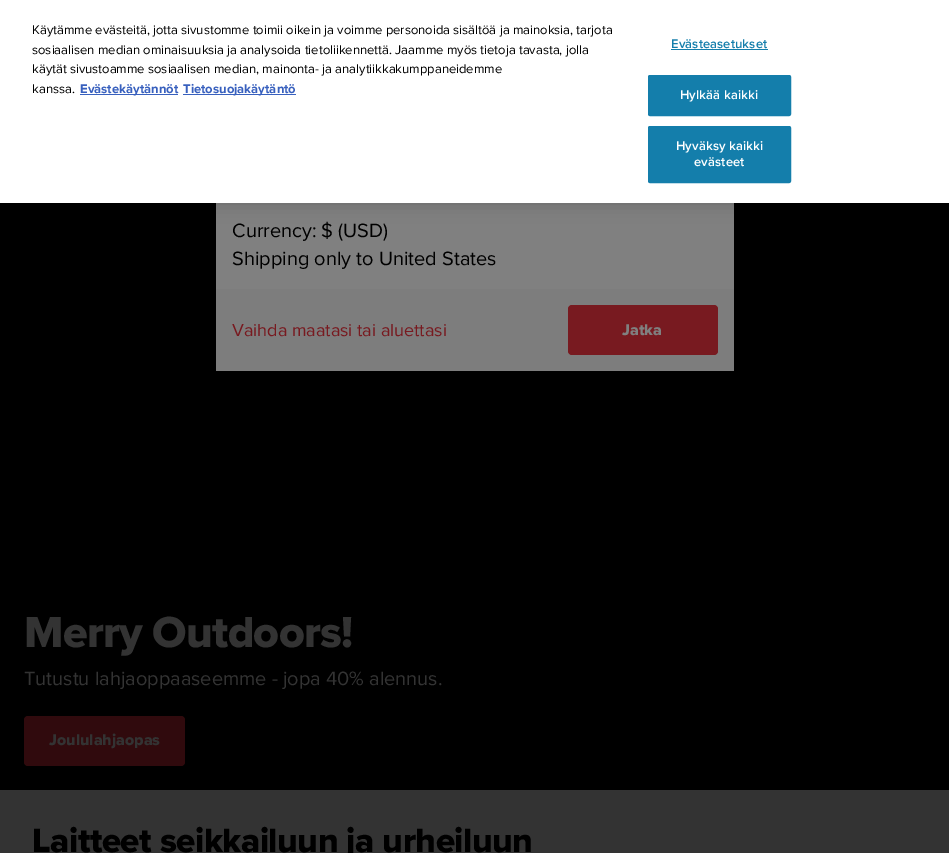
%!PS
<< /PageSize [949 853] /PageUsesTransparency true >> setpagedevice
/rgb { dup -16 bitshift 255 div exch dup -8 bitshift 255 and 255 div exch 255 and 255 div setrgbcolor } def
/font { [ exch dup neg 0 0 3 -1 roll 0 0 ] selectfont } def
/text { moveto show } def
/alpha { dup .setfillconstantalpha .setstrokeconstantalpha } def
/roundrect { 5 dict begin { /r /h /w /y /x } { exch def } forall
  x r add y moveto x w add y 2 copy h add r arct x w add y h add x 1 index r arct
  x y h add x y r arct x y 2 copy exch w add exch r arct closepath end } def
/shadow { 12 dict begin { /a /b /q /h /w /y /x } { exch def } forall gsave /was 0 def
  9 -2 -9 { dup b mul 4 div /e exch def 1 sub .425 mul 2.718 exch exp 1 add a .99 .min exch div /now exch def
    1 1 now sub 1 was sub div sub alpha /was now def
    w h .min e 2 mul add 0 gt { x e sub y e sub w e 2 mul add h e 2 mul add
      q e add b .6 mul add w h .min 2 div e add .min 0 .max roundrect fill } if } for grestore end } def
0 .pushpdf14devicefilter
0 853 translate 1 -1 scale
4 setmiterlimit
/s1 { /ProximaNova-Regular 13 font 16#000000 rgb } def
/s2 { /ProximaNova-Bold 13 font 16#3860BE rgb } def
/s3 { /ProximaNova-Regular 20 font 16#000000 rgb } def
/s4 { /ProximaNova-Regular 18 font 16#781A20 rgb } def
/s5 { /ProximaNova-ExtraBold 16 font 16#808080 rgb } def
/s6 { /ProximaNova-Regular 20 font 16#333333 rgb } def
/s7 { /ProximaNova-ExtraBold 16 font 16#333333 rgb } def
16#333333 rgb
0 0 949 853 rectfill
16#000000 rgb
0 203 949 587 rectfill
16#808080 rgb
216 203 518 86 rectfill
16#000000 rgb
0 0 949 203 0 9 0.2 shadow
16#FFFFFF rgb
0 0 949 203 rectfill
s1
(Käytämme evästeitä, jotta sivustomme toimii oikein ja voimme personoida sisältöä ja mainoksia, tarjota) 32 34 text
(sosiaalisen median ominaisuuksia ja analysoida tietoliikennettä. Jaamme myös tietoja tavasta, jolla) 32 54 text
(käytät sivustoamme sosiaalisen median, mainonta- ja analytiikkakumppaneidemme) 32 73 text
(kanssa.) 32 93 text
16#3860BE rgb
80 94 98 1 rectfill
s2
(Evästekäytännöt) 80 93 text
183 94 113 1 rectfill
(Tietosuojakäytäntö) 183 93 text
/ProximaNova-SemiBold 13 font
16#147EAB rgb
671 48 moveto 0.1 0 (Evästeasetukset) ashow
671 49 97 1 rectfill
648.5 75.5 142 40 1.5 roundrect gsave fill grestore
stroke
16#FFFFFF rgb
680 99 moveto 0.1 0 (Hylkää kaikki) ashow
16#147EAB rgb
648.5 126.5 142 56 1.5 roundrect gsave fill grestore
stroke
16#FFFFFF rgb
676 150 moveto 0.1 0 (Hyväksy kaikki) ashow
694 166 moveto 0.1 0 (evästeet) ashow
s3
(Currency: $ \(USD\)) 232 237 text
(Shipping only to United States) 232 265 text
16#7D7D7D rgb
216 289 518 82 rectfill
s4
(Vaihda maatasi tai aluettasi) 232 336 text
568 305 150 50 4 roundrect fill
s5
(Jatka) 622 335 text
/ProximaNova-ExtraBold 45 font
16#333333 rgb
24 647 moveto -0.75 0 (Merry Outdoors!) ashow
s6
(Tutustu lahjaoppaaseemme - jopa 40% alennus.) 24 685 text
16#300A0D rgb
24 716 161 50 4 roundrect fill
s7
(Joululahjaopas) 49 745 text
/ProximaNova-ExtraBold 35 font
16#000000 rgb
32 852 moveto -0.5 0 (Laitteet seikkailuun ja urheiluun) ashow
.poppdf14devicefilter showpage
